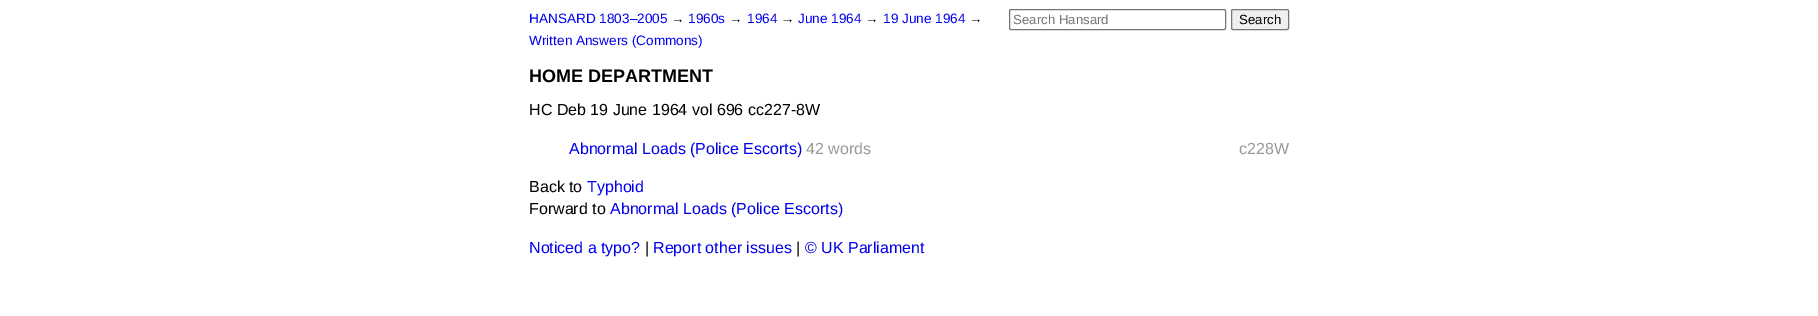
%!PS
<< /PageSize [1818 316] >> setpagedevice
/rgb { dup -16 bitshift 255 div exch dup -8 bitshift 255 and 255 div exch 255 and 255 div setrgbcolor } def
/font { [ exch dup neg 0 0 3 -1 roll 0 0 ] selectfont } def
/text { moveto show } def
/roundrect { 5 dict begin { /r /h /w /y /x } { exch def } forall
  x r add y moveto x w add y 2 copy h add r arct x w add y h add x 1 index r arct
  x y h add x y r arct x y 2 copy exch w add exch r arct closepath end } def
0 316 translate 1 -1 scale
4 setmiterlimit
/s1 { /LiberationSans-Regular 13.6 font 16#0000EE rgb } def
/s2 { /LiberationSans-Regular 13.6 font 16#000000 rgb } def
/s3 { /LiberationSans-Regular 13.25 font 16#757575 rgb } def
/s4 { /LiberationSans-Regular 13.25 font 16#000000 rgb } def
/s5 { /LiberationSans-Bold 18 font 16#000000 rgb } def
/s6 { /LiberationSans-Regular 16 font 16#000000 rgb } def
/s7 { /LiberationSans-Regular 16 font 16#0000EE rgb } def
/s8 { /LiberationSans-Regular 16 font 16#999999 rgb } def
16#FFFFFF rgb
0 0 1818 316 rectfill
s1
(HANSARD 1803–2005) 529 23 text
s2
(→) 671 23 text
s1
(1960s) 688 23 text
s2
(→) 729 23 text
s1
(1964) 747 23 text
s2
(→) 781 23 text
s1
(June 1964) 798 23 text
s2
(→) 865 23 text
s1
(19 June 1964) 883 23 text
s2
(→) 969 23 text
s1
(Written Answers \(Commons\)) 529 45 text
16#767676 rgb
1009.5 9.5 216 20 1.5 roundrect stroke
s3
(Search Hansard) 1013 24 text
16#EFEFEF rgb
1231.5 9.5 57 20 1.5 roundrect gsave fill grestore
16#767676 rgb
stroke
s4
(Search) 1239 24 text
s5
(HOME DEPARTMENT) 529 82 text
s6
(HC Deb 19 June 1964 vol 696 cc227-8W) 529 115 text
s7
(Abnormal Loads \(Police Escorts\)) 569 154 text
s8
(42 words) 806 154 text
(c228W) 1239 154 text
s6
(Back to) 529 192 text
s7
(Typhoid) 587 192 text
s6
(Forward to) 529 214 text
s7
(Abnormal Loads \(Police Escorts\)) 610 214 text
(Noticed a typo?) 529 253 text
s6
(|) 645 253 text
s7
(Report other issues) 653 253 text
s6
(|) 796 253 text
s7
(© UK Parliament) 805 253 text
showpage
